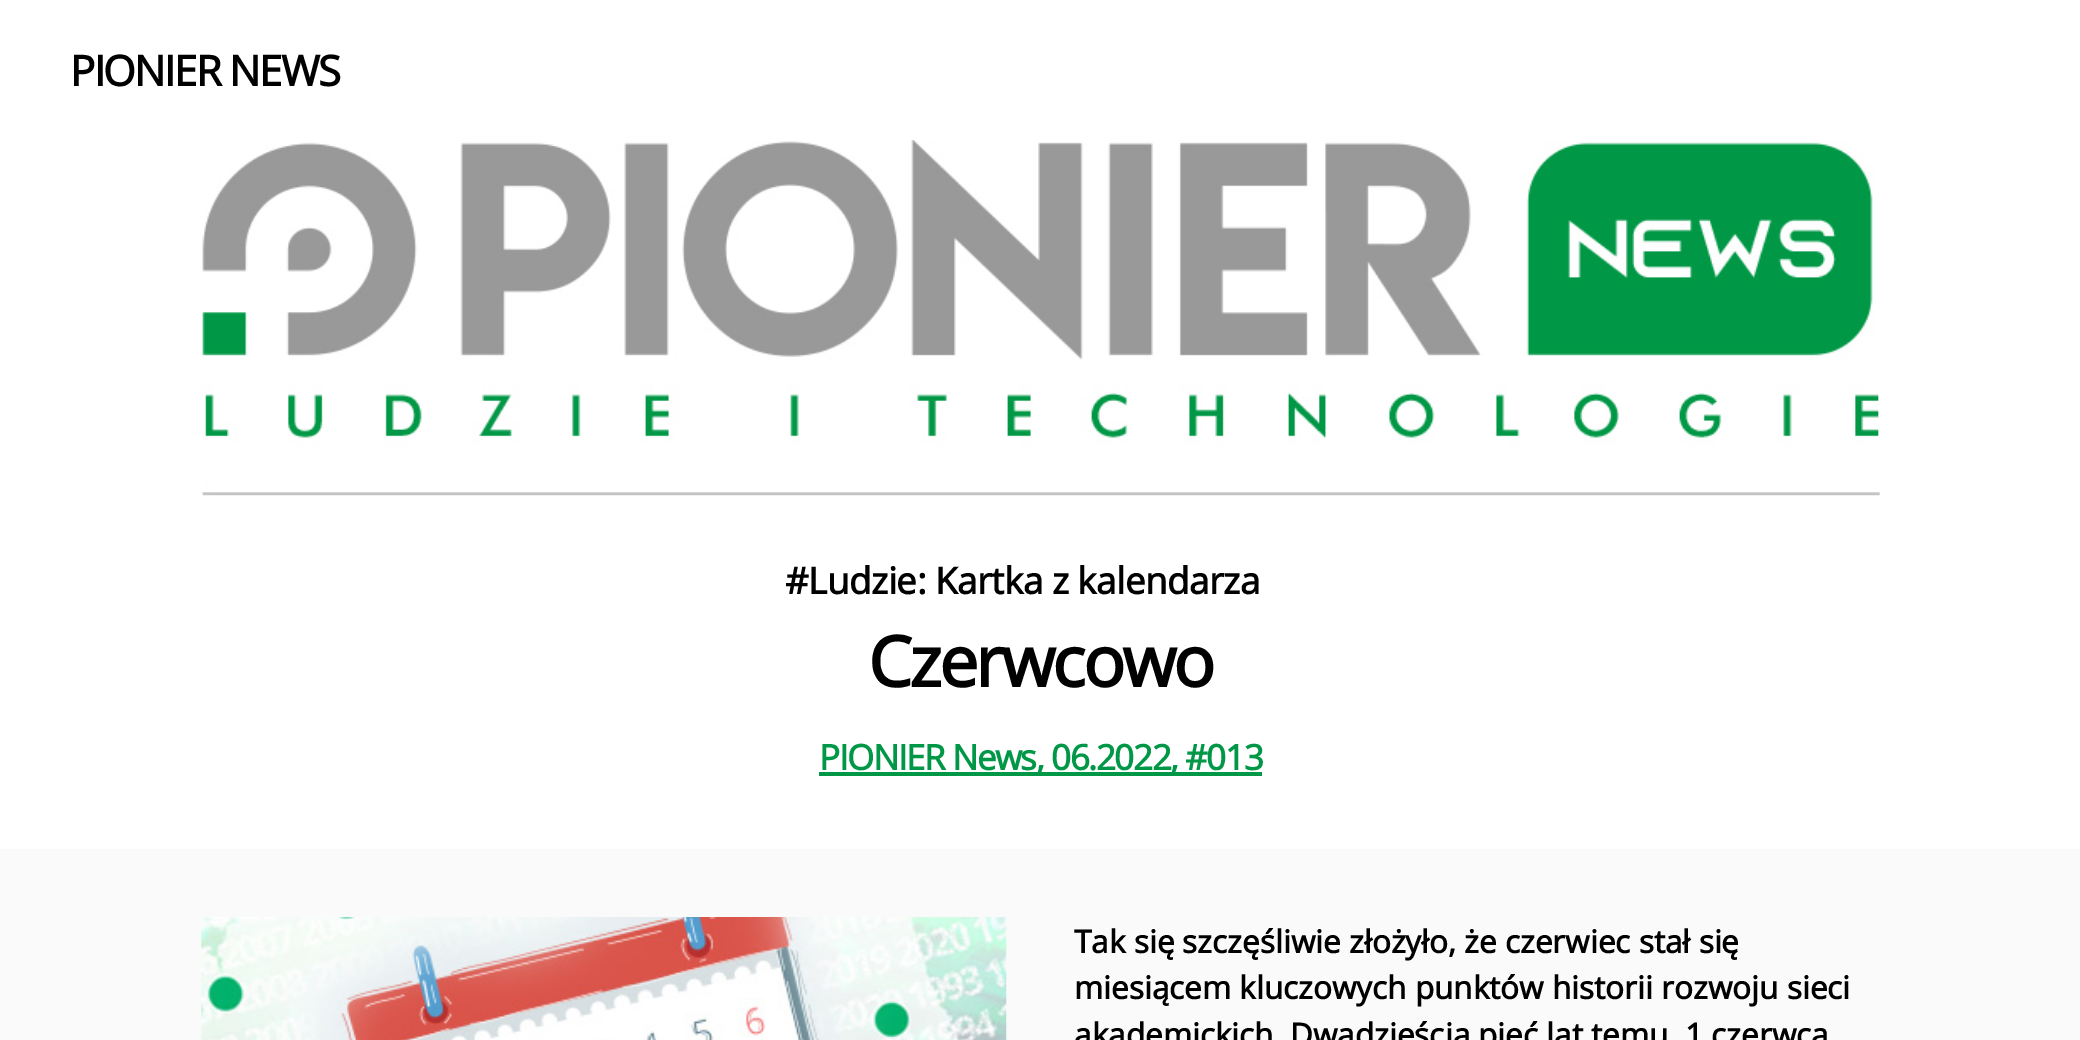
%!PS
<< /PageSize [2080 1040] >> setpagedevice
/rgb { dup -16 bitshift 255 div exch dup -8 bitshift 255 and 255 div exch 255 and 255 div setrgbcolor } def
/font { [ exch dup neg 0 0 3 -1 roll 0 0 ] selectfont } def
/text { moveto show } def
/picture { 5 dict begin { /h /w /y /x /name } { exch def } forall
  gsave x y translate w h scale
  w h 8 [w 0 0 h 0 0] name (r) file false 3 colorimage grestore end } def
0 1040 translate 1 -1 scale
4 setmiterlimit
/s1 { /OpenSans-Bold 31.5 font 16#000000 rgb } def
16#FAFAFA rgb
0 0 2080 1040 rectfill
16#FFFFFF rgb
0 0 2080 849 rectfill
/OpenSans-Bold 42 font
16#000000 rgb
70 86 moveto -1.75 0 (PIONIER NEWS) ashow
(pic1.raw) 202 140 1678 356 picture
/OpenSans-Bold 36.75 font
785 594 moveto -0.5 0 (#Ludzie: Kartka z kalendarza) ashow
/OpenSans-Bold 70 font
868 687 moveto -3 0 (Czerwcowo) ashow
16#009746 rgb
819 772 443 4 rectfill
/OpenSans-Bold 35 font
819 770 moveto -1.45 0 (PIONIER News, 06.2022, #013) ashow
(pic2.raw) 201 917 806 123 picture
s1
(Tak się szczęśliwie złożyło, że czerwiec stał się) 1074 953 text
(miesiącem kluczowych punktów historii rozwoju sieci) 1074 999 text
(akademickich. Dwadzieścia pięć lat temu, 1 czerwca) 1074 1046 text
showpage
